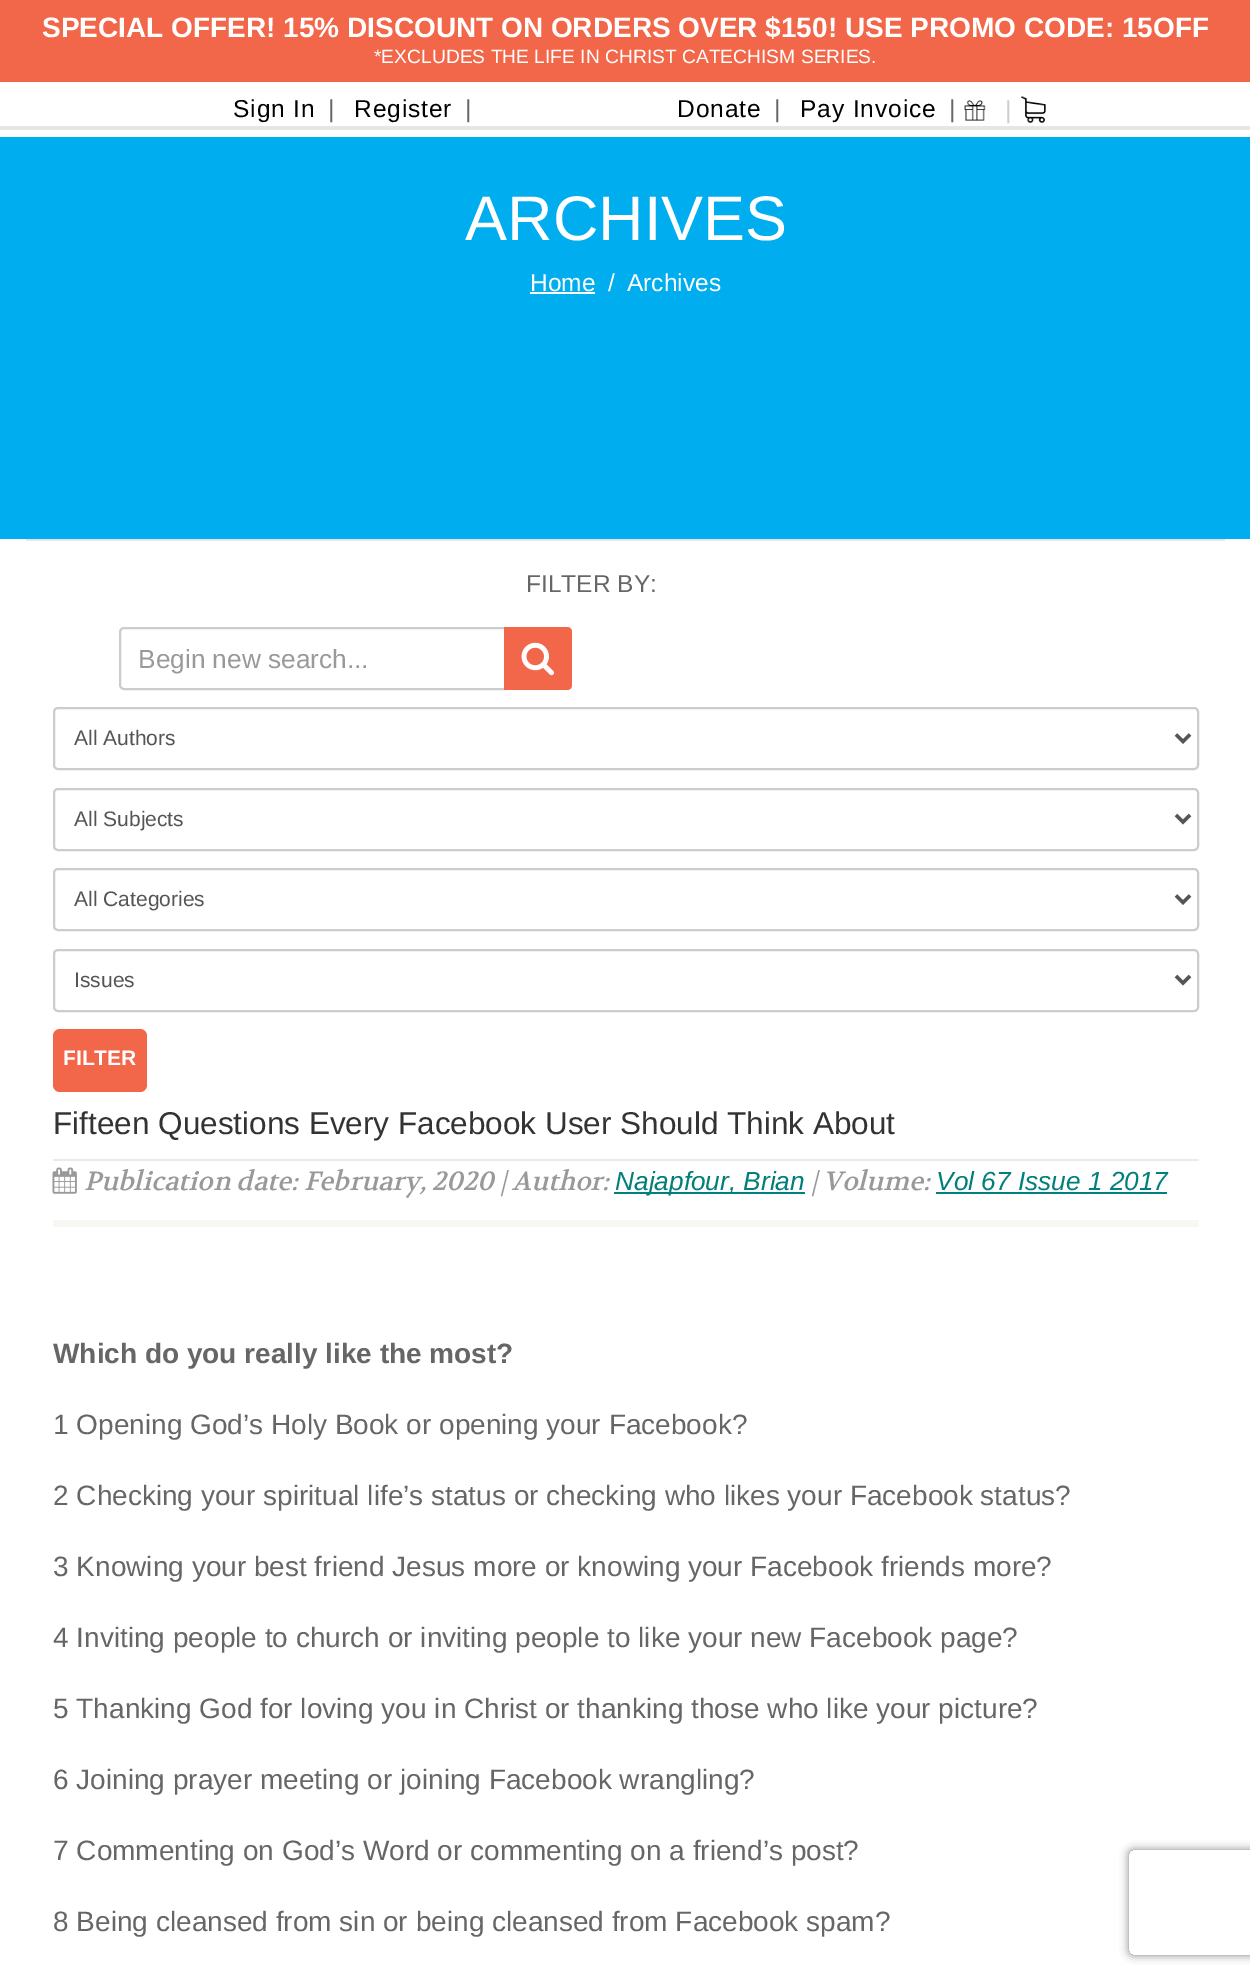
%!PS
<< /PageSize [1250 1979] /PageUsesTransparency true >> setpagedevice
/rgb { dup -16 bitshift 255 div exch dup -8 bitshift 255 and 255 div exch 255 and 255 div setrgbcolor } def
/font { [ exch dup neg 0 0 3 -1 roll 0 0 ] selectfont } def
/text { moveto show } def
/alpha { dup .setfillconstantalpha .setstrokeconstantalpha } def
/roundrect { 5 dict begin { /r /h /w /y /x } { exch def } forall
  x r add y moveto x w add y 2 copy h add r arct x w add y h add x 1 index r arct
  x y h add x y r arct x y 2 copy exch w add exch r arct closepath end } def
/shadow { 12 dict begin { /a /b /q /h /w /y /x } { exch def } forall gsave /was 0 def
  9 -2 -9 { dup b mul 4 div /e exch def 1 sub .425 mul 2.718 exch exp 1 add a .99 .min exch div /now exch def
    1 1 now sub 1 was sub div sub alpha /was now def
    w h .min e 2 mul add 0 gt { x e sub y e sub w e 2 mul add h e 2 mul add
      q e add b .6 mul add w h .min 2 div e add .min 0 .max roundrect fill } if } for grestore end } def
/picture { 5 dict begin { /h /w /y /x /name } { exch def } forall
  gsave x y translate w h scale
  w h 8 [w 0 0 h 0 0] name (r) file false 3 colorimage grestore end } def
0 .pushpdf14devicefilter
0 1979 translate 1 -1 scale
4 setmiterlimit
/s1 { /LiberationSans-Bold 28 font 16#FFFFFF rgb } def
/s2 { /LiberationSans-Regular 19.25 font 16#FFFFFF rgb } def
/s3 { /LiberationSans-Regular 24.5 font 16#666666 rgb } def
/s4 { /LiberationSans-Regular 24.5 font 16#CCCCCC rgb } def
/s5 { /LiberationSans-Regular 63 font 16#FFFFFF rgb } def
/s6 { /LiberationSans-Regular 24.5 font 16#FFFFFF rgb } def
/s7 { /LiberationSans-Regular 26.25 font 16#999999 rgb } def
/s8 { /LiberationSans-Regular 21 font 16#555555 rgb } def
/s9 { /LiberationSans-Bold 21 font 16#FFFFFF rgb } def
/s10 { /LiberationSans-Regular 31.5 font 16#333333 rgb } def
/s11 { /Volkhov-Italic 26.25 font 16#999999 rgb } def
/s12 { /LiberationSans-Italic 26.25 font 16#007F7B rgb } def
/s13 { /LiberationSans-Bold 28 font 16#666666 rgb } def
/s14 { /LiberationSans-Regular 28 font 16#666666 rgb } def
16#FFFFFF rgb
0 0 1250 1979 rectfill
16#F26649 rgb
0 0 1250 82 rectfill
s1
(SPECIAL OFFER! 15% DISCOUNT ON ORDERS OVER $150! USE PROMO CODE: 15OFF) 42 37 text
s2
(*EXCLUDES THE LIFE IN CHRIST CATECHISM SERIES.) 374 63 text
16#E6E6E6 rgb
0 126 1250 4 rectfill
/LiberationSans-Regular 24.5 font
16#000000 rgb
233 117 moveto 0.9 0 (Sign In) ashow
s3
(|) 328 117 text
16#000000 rgb
354 117 moveto 0.9 0 (Register) ashow
s3
(|) 465 117 text
16#000000 rgb
677 117 moveto 0.9 0 (Donate) ashow
s3
(|) 774 117 text
16#000000 rgb
800 117 moveto 0.9 0 (Pay Invoice) ashow
s3
(|) 949 117 text
(pic1.raw) 964 100 22 21 picture
s4
(|) 1005 118 text
(pic2.raw) 1021 96 25 27 picture
16#00ADEF rgb
0 137 1250 402 rectfill
s5
(ARCHIVES) 465 240 text
s6
(Home) 530 291 text
530 292 65 2 rectfill
(/) 608 291 text
(Archives) 627 291 text
16#E6E6E6 rgb
26 539 1199 2 1 roundrect fill
s3
(FILTER BY:) 526 592 text
16#CCCCCC rgb
2 setlinewidth
124 628 moveto 505 628 lineto 505 689 lineto 124 689 lineto 122 689 120 687 120 685 curveto 120 632 lineto 120 630 122 628 124 628 curveto closepath stroke
s7
(Begin new search...) 138 668 text
16#F26649 rgb
504 627 moveto 567 627 lineto 570 627 572 629 572 632 curveto 572 685 lineto 572 688 570 690 567 690 curveto 504 690 lineto closepath fill
(pic3.raw) 521 642 33 34 picture
16#CCCCCC rgb
54 708 1144 61 4 roundrect stroke
16#555555 rgb
3.5 setlinewidth
1176 734.5 moveto 1183 741.5 lineto 1190 734.5 lineto stroke
s8
(All Authors) 74 745 text
16#CCCCCC rgb
2 setlinewidth
54 789 1144 61 4 roundrect stroke
16#555555 rgb
3.5 setlinewidth
1176 815 moveto 1183 822 lineto 1190 815 lineto stroke
(All Subjects) 74 826 text
16#CCCCCC rgb
2 setlinewidth
54 869 1144 61 4 roundrect stroke
16#555555 rgb
3.5 setlinewidth
1176 895.5 moveto 1183 902.5 lineto 1190 895.5 lineto stroke
(All Categories) 74 906 text
16#CCCCCC rgb
2 setlinewidth
54 950 1144 61 4 roundrect stroke
16#555555 rgb
3.5 setlinewidth
1176 976 moveto 1183 983 lineto 1190 976 lineto stroke
(Issues) 74 987 text
16#F26649 rgb
53 1029 94 63 7 roundrect fill
s9
(FILTER) 63 1065 text
16#ECEAE4 rgb
53 1159 1146 2 rectfill
s10
(Fifteen Questions Every Facebook User Should Think About) 53 1134 text
(pic4.raw) 52 1167 25 27 picture
s11
(Publication date: February, 2020 | Author:) 84 1190 text
16#007F7B rgb
614 1192 191 2 rectfill
s12
(Najapfour, Brian) 615 1190 text
s11
(| Volume:) 811 1190 text
s12
(Vol 67 Issue 1 2017) 936 1190 text
936 1192 231 2 rectfill
16#F8F7F3 rgb
53 1220 1146 7 rectfill
s13
(Which do you really like the most?) 53 1363 text
s14
(1 Opening God’s Holy Book or opening your Facebook?) 53 1434 text
(2 Checking your spiritual life’s status or checking who likes your Facebook status?) 53 1505 text
(3 Knowing your best friend Jesus more or knowing your Facebook friends more?) 53 1576 text
(4 Inviting people to church or inviting people to like your new Facebook page?) 53 1647 text
(5 Thanking God for loving you in Christ or thanking those who like your picture?) 53 1718 text
(6 Joining prayer meeting or joining Facebook wrangling?) 53 1789 text
(7 Commenting on God’s Word or commenting on a friend’s post?) 53 1860 text
(8 Being cleansed from sin or being cleansed from Facebook spam?) 53 1931 text
gsave
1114 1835 moveto 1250 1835 lineto 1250 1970 lineto 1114 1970 lineto closepath 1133 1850 moveto 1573 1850 lineto 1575 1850 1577 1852 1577 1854 curveto 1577 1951 lineto 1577 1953 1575 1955 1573 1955 curveto 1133 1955 lineto 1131 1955 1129 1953 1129 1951 curveto 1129 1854 lineto 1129 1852 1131 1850 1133 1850 curveto closepath eoclip newpath
16#808080 rgb
1129 1850 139 105 4 4.5 1 shadow
grestore
.poppdf14devicefilter showpage
